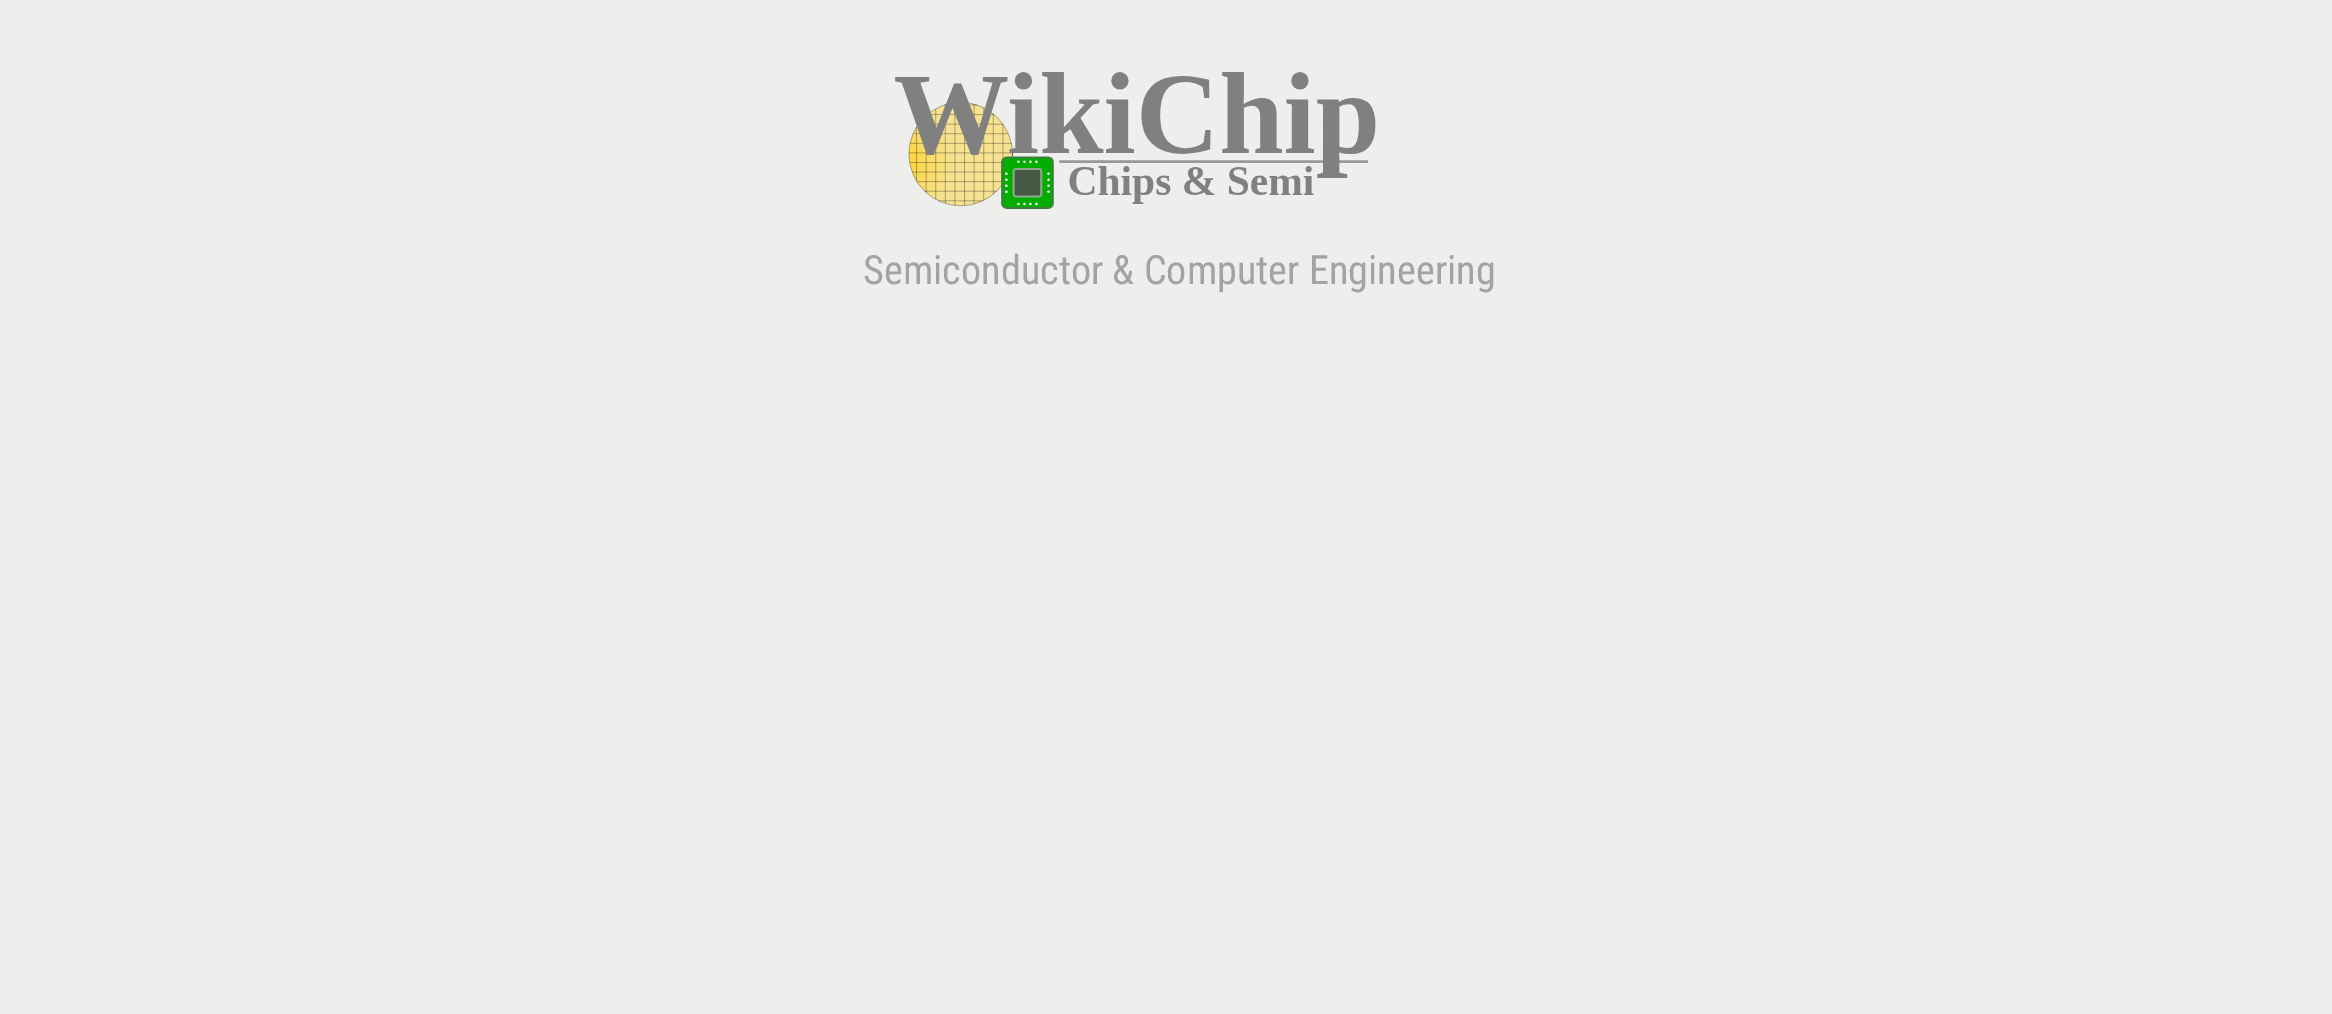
%!PS
<< /PageSize [2332 1014] >> setpagedevice
/rgb { dup -16 bitshift 255 div exch dup -8 bitshift 255 and 255 div exch 255 and 255 div setrgbcolor } def
/font { [ exch dup neg 0 0 3 -1 roll 0 0 ] selectfont } def
/text { moveto show } def
/picture { 5 dict begin { /h /w /y /x /name } { exch def } forall
  gsave x y translate w h scale
  w h 8 [w 0 0 h 0 0] name (r) file false 3 colorimage grestore end } def
0 1014 translate 1 -1 scale
4 setmiterlimit
/s1 { /RobotoCondensed-Regular 40.3 font 16#A3A3A3 rgb } def
16#EEEEED rgb
0 0 2332 1014 rectfill
(pic1.raw) 895 72 481 137 picture
s1
(Semiconductor & Computer Engineering) 863 284 text
showpage
